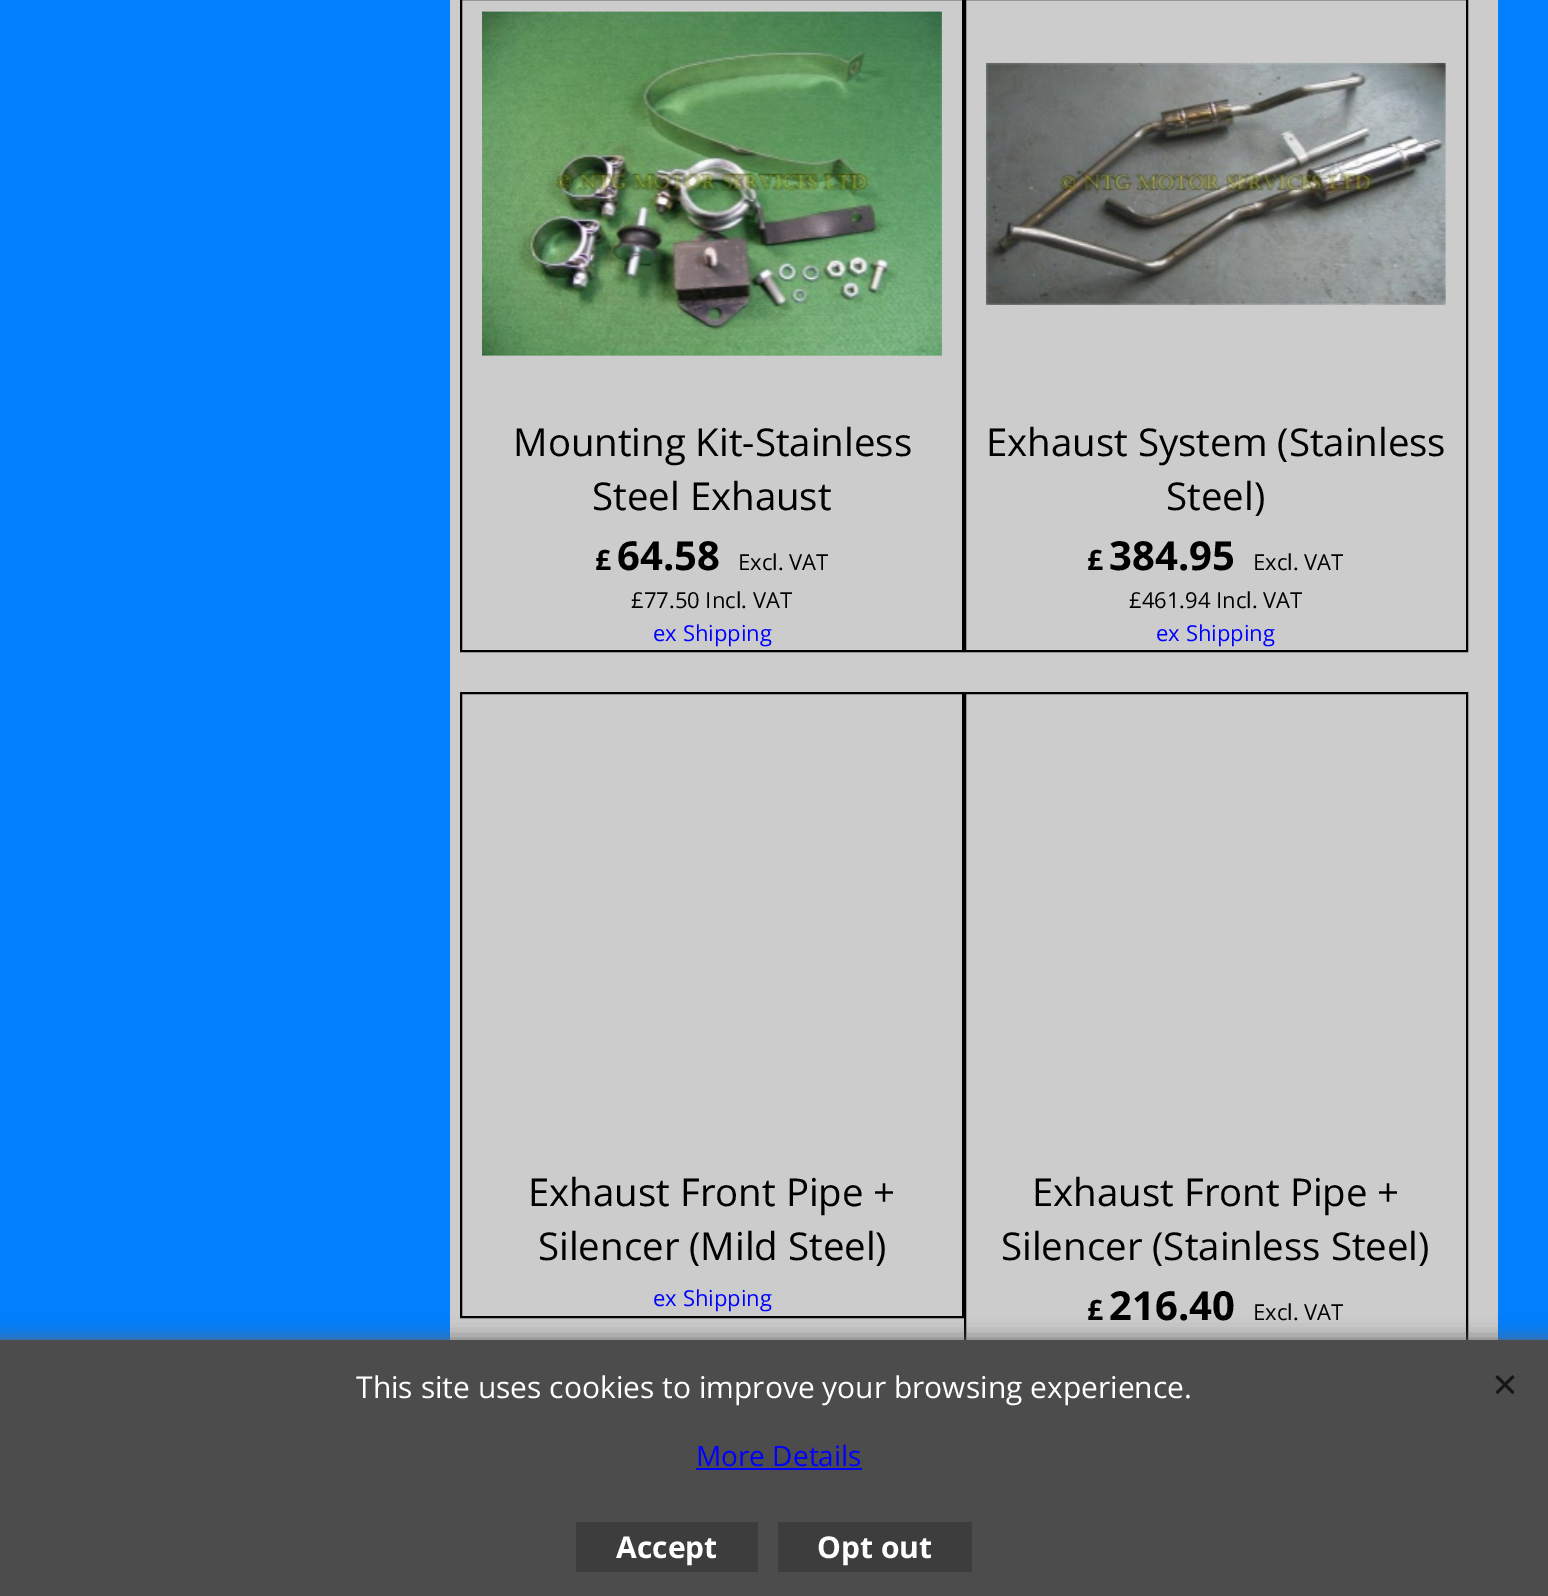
%!PS
<< /PageSize [1548 1596] /PageUsesTransparency true >> setpagedevice
/rgb { dup -16 bitshift 255 div exch dup -8 bitshift 255 and 255 div exch 255 and 255 div setrgbcolor } def
/font { [ exch dup neg 0 0 3 -1 roll 0 0 ] selectfont } def
/text { moveto show } def
/alpha { dup .setfillconstantalpha .setstrokeconstantalpha } def
/roundrect { 5 dict begin { /r /h /w /y /x } { exch def } forall
  x r add y moveto x w add y 2 copy h add r arct x w add y h add x 1 index r arct
  x y h add x y r arct x y 2 copy exch w add exch r arct closepath end } def
/shadow { 12 dict begin { /a /b /q /h /w /y /x } { exch def } forall gsave /was 0 def
  9 -2 -9 { dup b mul 4 div /e exch def 1 sub .425 mul 2.718 exch exp 1 add a .99 .min exch div /now exch def
    1 1 now sub 1 was sub div sub alpha /was now def
    w h .min e 2 mul add 0 gt { x e sub y e sub w e 2 mul add h e 2 mul add
      q e add b .6 mul add w h .min 2 div e add .min 0 .max roundrect fill } if } for grestore end } def
/picture { 5 dict begin { /h /w /y /x /name } { exch def } forall
  gsave x y translate w h scale
  w h 8 [w 0 0 h 0 0] name (r) file false 3 colorimage grestore end } def
0 .pushpdf14devicefilter
0 1596 translate 1 -1 scale
4 setmiterlimit
/s1 { /OpenSans-Regular 38.4 font 16#000000 rgb } def
/s2 { /OpenSans-Bold 28 font 16#000000 rgb } def
/s3 { /OpenSans-Bold 40 font 16#000000 rgb } def
/s4 { /OpenSans-Regular 22 font 16#000000 rgb } def
/s5 { /OpenSans-Regular 22 font 16#0000FF rgb } def
/s6 { /OpenSans-Regular 30 font 16#FFFFFF rgb } def
/s7 { /OpenSans-Regular 28 font 16#0000FF rgb } def
/s8 { /OpenSans-Bold 30 font 16#FFFFFF rgb } def
16#007FFF rgb
0 0 1548 1596 rectfill
16#CCCCCC rgb
450 0 1048 1340 rectfill
16#000000 rgb
2 setlinewidth
461 -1 502 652 rectstroke
(pic1.raw) 482 11 460 345 picture
s1
(Mounting Kit-Stainless) 513 456 text
(Steel Exhaust) 592 510 text
s2
(£) 595 570 text
s3
(64.58) 617 570 text
s4
(Excl. VAT) 738 570 text
(£77.50 Incl. VAT) 631 608 text
s5
(ex Shipping) 653 641 text
16#000000 rgb
965 -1 502 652 rectstroke
(pic2.raw) 986 62 460 243 picture
s1
(Exhaust System \(Stainless) 986 456 text
(Steel\)) 1166 510 text
s2
(£) 1087 570 text
s3
(384.95) 1109 570 text
s4
(Excl. VAT) 1253 570 text
(£461.94 Incl. VAT) 1129 608 text
s5
(ex Shipping) 1156 641 text
16#000000 rgb
461 693 502 624 rectstroke
s1
(Exhaust Front Pipe +) 528 1206 text
(Silencer \(Mild Steel\)) 538 1260 text
s5
(ex Shipping) 653 1306 text
16#000000 rgb
965 693 502 708 rectstroke
s1
(Exhaust Front Pipe +) 1032 1206 text
(Silencer \(Stainless Steel\)) 1001 1260 text
s2
(£) 1087 1320 text
s3
(216.40) 1109 1320 text
s4
(Excl. VAT) 1253 1320 text
16#666666 rgb
0 1340 1548 256 0 10 1 shadow
16#4C4C4C rgb
0 1340 1548 256 rectfill
s6
(This site uses cookies to improve your browsing experience.) 356 1398 text
s7
(More Details) 696 1466 text
696 1468 166 2 rectfill
(pic3.raw) 1495 1375 20 20 picture
16#3D3D3D rgb
576 1522 182 50 rectfill
s8
(Accept) 616 1558 text
16#3D3D3D rgb
778 1522 194 50 rectfill
s8
(Opt out) 817 1558 text
.poppdf14devicefilter showpage
